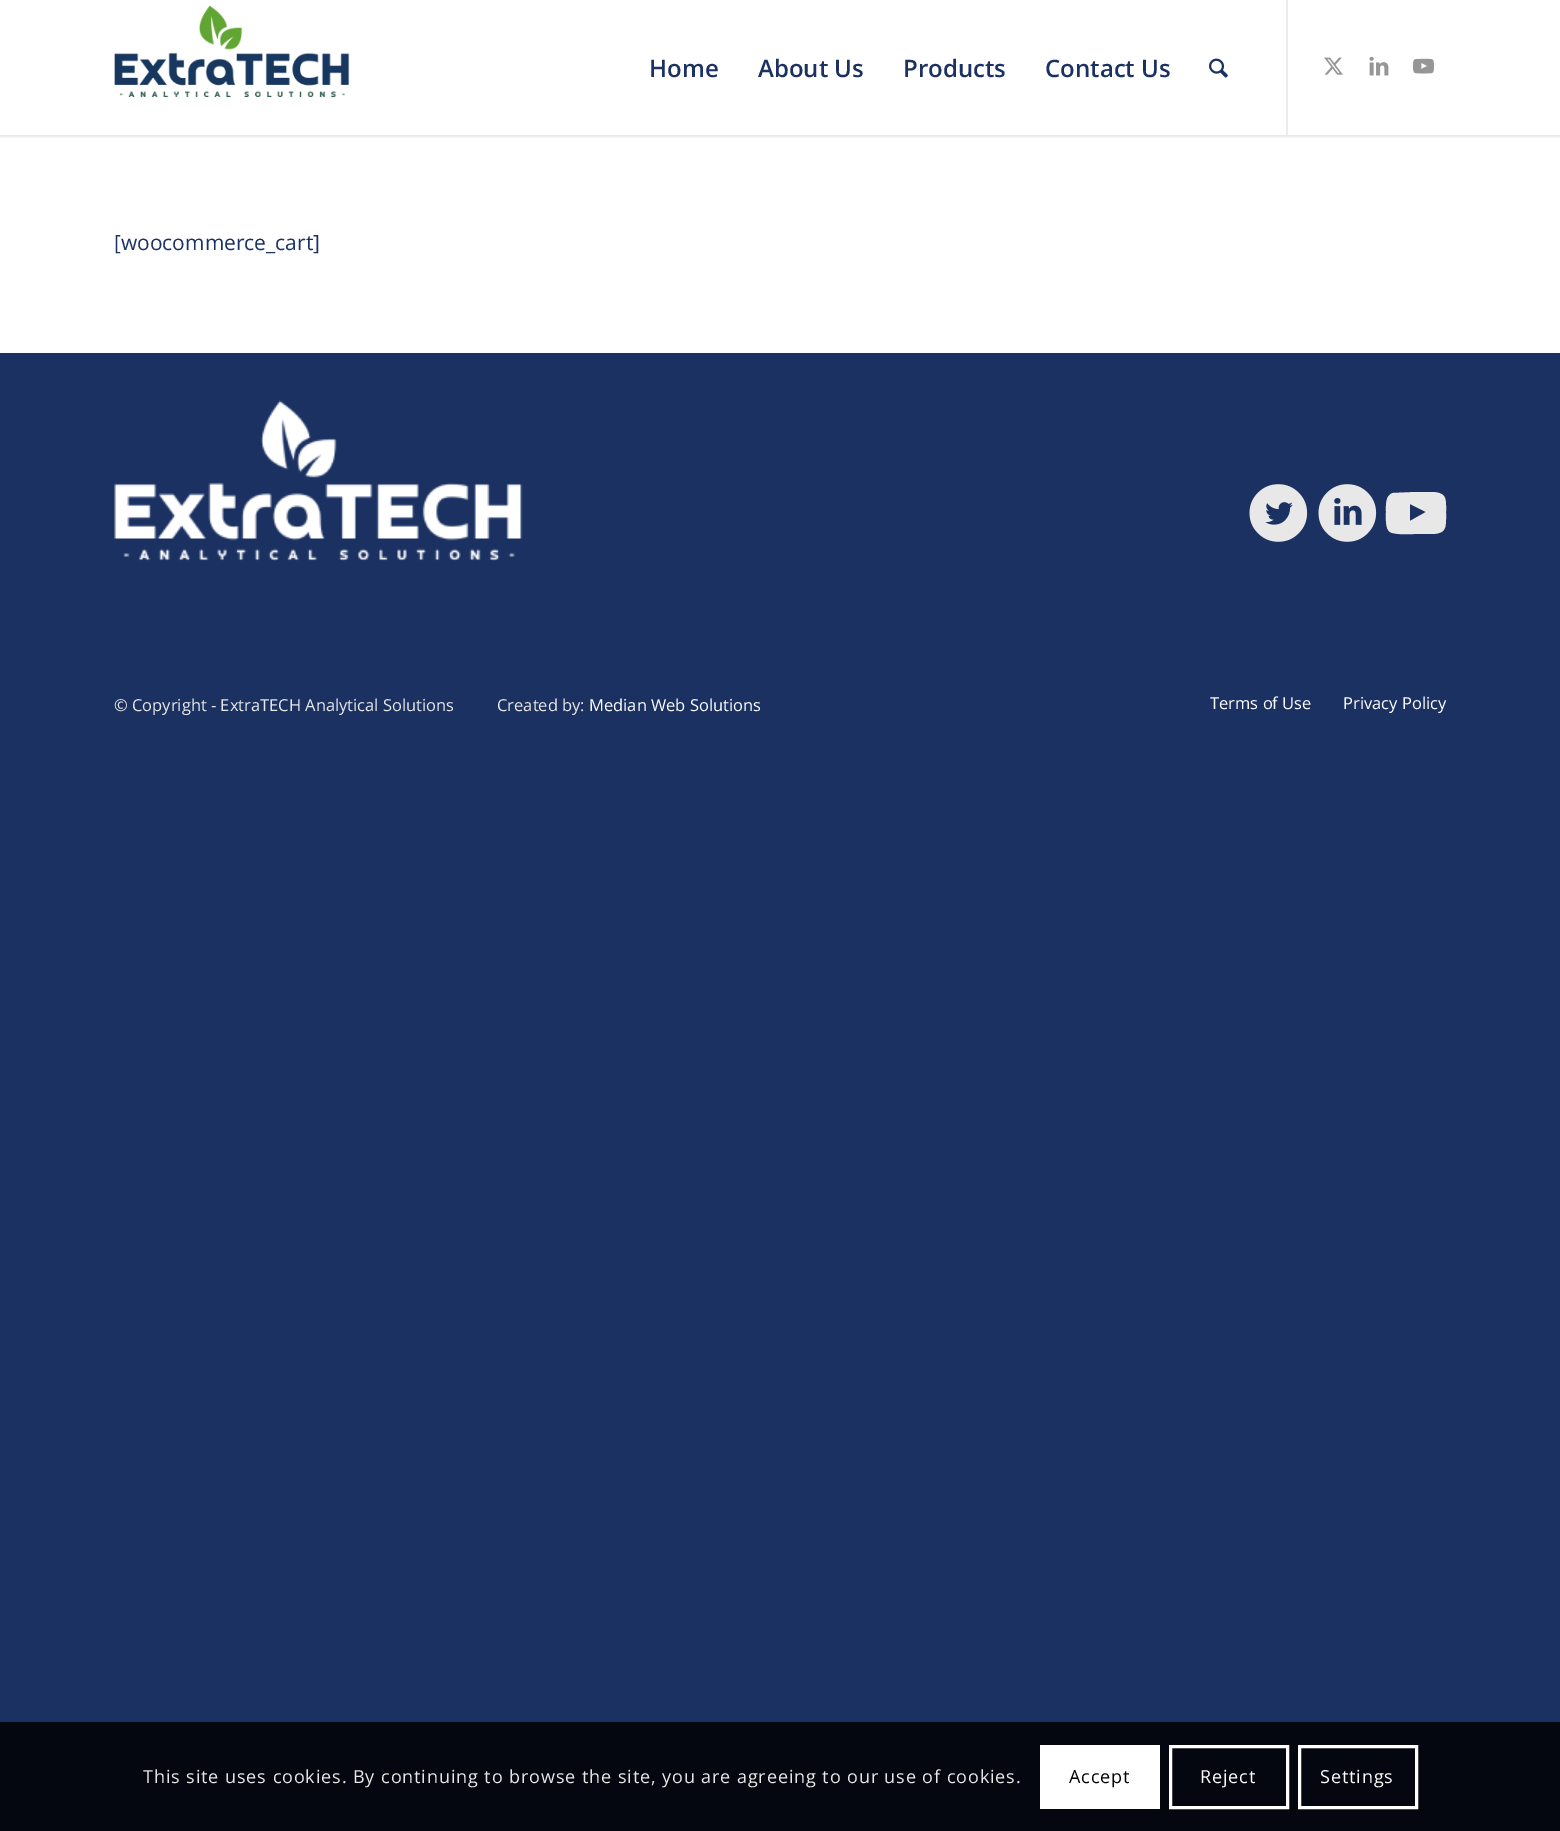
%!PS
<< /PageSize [1560 1831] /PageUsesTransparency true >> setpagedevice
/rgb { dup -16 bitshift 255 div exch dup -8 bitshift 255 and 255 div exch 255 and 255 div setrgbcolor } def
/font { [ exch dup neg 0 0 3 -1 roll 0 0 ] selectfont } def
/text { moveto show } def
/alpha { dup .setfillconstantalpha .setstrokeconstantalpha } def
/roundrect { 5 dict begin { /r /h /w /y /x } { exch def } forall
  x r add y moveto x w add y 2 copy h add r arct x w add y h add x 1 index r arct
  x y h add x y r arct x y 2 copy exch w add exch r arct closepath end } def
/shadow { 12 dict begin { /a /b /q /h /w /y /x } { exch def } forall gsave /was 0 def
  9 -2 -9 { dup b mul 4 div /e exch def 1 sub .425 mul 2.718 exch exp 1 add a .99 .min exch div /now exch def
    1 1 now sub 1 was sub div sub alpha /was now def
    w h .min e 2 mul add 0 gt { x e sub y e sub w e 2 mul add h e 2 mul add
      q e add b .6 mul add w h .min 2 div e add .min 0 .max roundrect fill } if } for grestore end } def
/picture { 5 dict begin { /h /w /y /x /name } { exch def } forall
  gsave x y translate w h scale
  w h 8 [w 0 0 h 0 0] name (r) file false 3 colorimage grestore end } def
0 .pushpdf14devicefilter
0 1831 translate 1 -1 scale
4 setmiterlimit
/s1 { /OpenSans-SemiBold 24 font 16#1B3162 rgb } def
/s2 { /OpenSans-Regular 21 font 16#1B3162 rgb } def
/s3 { /OpenSans-Regular 16.5 font 16#E8E8E8 rgb } def
/s4 { /OpenSans-Regular 16.5 font 16#FFFFFF rgb } def
16#1B3162 rgb
0 0 1560 1831 rectfill
16#FFFFFF rgb
0 0 1560 353 rectfill
gsave
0 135 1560 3 rectclip
16#000000 rgb
-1 -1 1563 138 0 1.5 0.1 shadow
grestore
(pic1.raw) 114 5 236 93 picture
16#EBEBEB rgb
1286 0 2 135 rectfill
s1
(Home) 649 77 text
(About Us) 758 77 text
(Products) 903 77 text
(Contact Us) 1045 77 text
(pic2.raw) 1209 58 19 20 picture
(pic3.raw) 1324 57 19 18 picture
(pic4.raw) 1369 56 20 20 picture
(pic5.raw) 1413 58 21 16 picture
s2
([woocommerce_cart]) 114 250 text
(pic6.raw) 114 400 409 161 picture
(pic7.raw) 1249 484 59 58 picture
(pic8.raw) 1318 484 59 58 picture
16#E8E8E8 rgb
1410 521 moveto 1426 512 lineto 1410 504 lineto closepath 1416 492 moveto 1433 492 lineto 1447 493 1446 499 1446 512 curveto 1446 527 1447 533 1433 534 curveto 1414 534 lineto 1409 534 1395 535 1390 532 curveto 1385 529 1386 517 1386 512 curveto 1386 506 1385 495 1393 493 curveto closepath fill
s3
(© Copyright - ExtraTECH Analytical Solutions) 114 711 text
(Created by:) 497 711 text
s4
(Median Web Solutions) 589 711 text
(Terms of Use) 1210 709 text
(Privacy Policy) 1343 709 text
16#04070F rgb
0 1722 1560 109 rectfill
/OpenSans-Regular 18 font
16#E8E8E8 rgb
143 1783 moveto 0.9 0 (This site uses cookies. By continuing to browse the site, you are agreeing to our use of cookies.) ashow
16#FFFFFF rgb
1040 1745 120 64 rectfill
16#000000 rgb
1069 1783 moveto 0.9 0 (Accept) ashow
16#FFFFFF rgb
3 setlinewidth
1170.5 1746.5 117 61 rectstroke
1200 1783 moveto 0.9 0 (Reject) ashow
1299.5 1746.5 117 61 rectstroke
1320 1783 moveto 0.9 0 (Settings) ashow
.poppdf14devicefilter showpage
